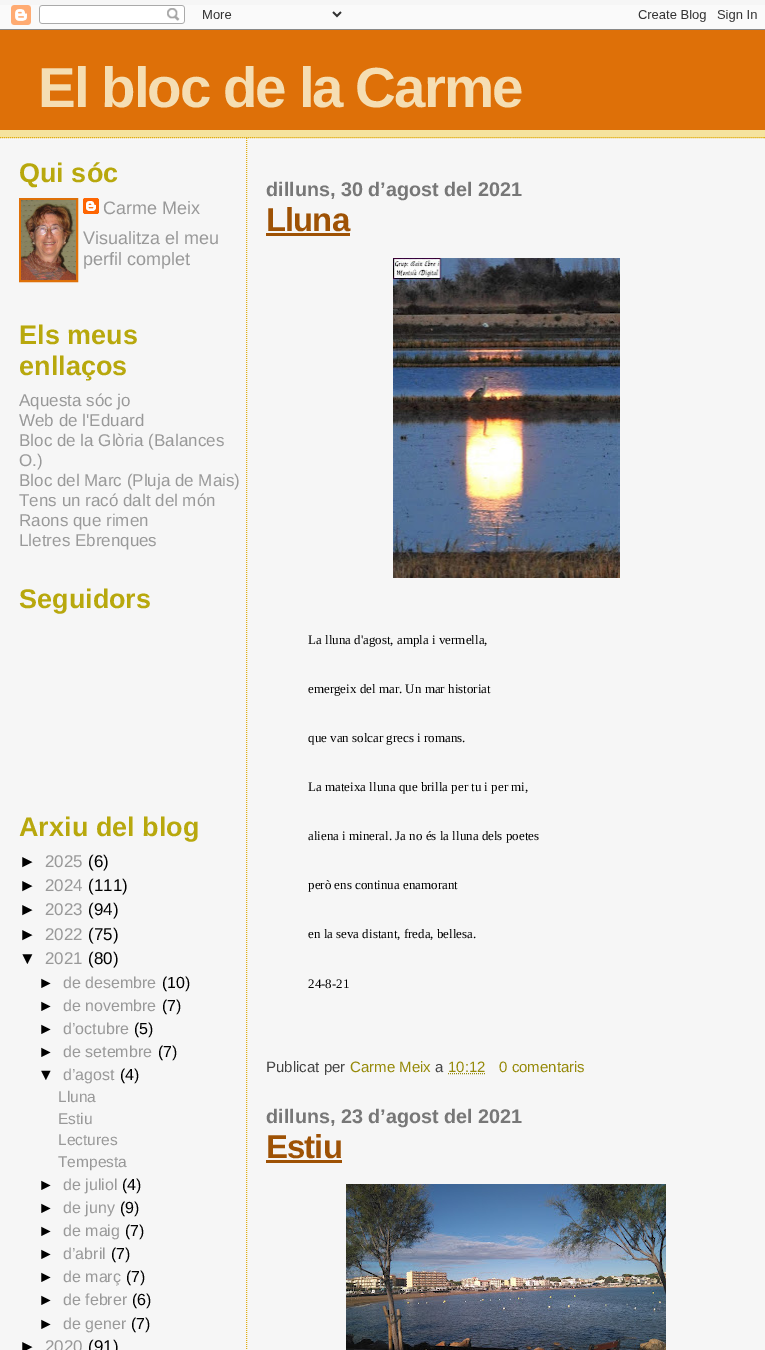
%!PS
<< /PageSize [765 1350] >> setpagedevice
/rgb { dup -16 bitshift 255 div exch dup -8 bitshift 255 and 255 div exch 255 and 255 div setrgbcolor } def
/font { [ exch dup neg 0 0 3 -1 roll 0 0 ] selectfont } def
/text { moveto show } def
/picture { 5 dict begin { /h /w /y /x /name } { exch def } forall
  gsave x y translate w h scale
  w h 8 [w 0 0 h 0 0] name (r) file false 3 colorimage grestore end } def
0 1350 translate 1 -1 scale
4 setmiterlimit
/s1 { /LiberationSans-Bold 27 font 16#B8A80D rgb } def
/s2 { /LiberationSans-Regular 18 font 16#999999 rgb } def
/s3 { /LiberationSans-Regular 17 font 16#999999 rgb } def
/s4 { /LiberationSans-Regular 17 font 16#000000 rgb } def
/s5 { /LiberationSans-Regular 16 font 16#000000 rgb } def
/s6 { /LiberationSans-Regular 16 font 16#999999 rgb } def
/s7 { /LiberationSans-Regular 15.5 font 16#999999 rgb } def
/s8 { /LiberationSans-Bold 19.75 font 16#777777 rgb } def
/s9 { /LiberationSerif-Regular 13 font 16#000000 rgb } def
/s10 { /LiberationSans-Regular 15 font 16#444444 rgb } def
/s11 { /LiberationSans-Regular 15 font 16#968A0A rgb } def
16#F6F6F6 rgb
0 0 765 1350 rectfill
(pic1.raw) 0 5 765 25 picture
16#F5E39E rgb
0 130 765 8 rectfill
16#E0AD12 rgb
[1 1] 0 setdash
0 137.5 moveto 765 137.5 lineto stroke
16#DE7008 rgb
0 30 765 100 rectfill
/LiberationSans-Bold 56.5 font
16#F5DEB3 rgb
38 107 moveto -2 0 (El bloc de la Carme) ashow
s1
(Qui sóc) 19 182 text
16#DE7008 rgb
2 setlinewidth
[] 0 setdash
20 199 57 82 rectstroke
(pic2.raw) 21 200 55 80 picture
(pic3.raw) 83 198 16 16 picture
s2
(Carme Meix) 103 214 text
(Visualitza el meu) 83 244 text
(perfil complet) 83 265 text
s1
(Els meus) 19 344 text
(enllaços) 19 375 text
s3
(Aquesta sóc jo) 19 406 text
(Web de l'Eduard) 19 426 text
(Bloc de la Glòria \(Balances) 19 446 text
(O.\)) 19 466 text
(Bloc del Marc \(Pluja de Mais\)) 19 486 text
(Tens un racó dalt del món) 19 506 text
(Raons que rimen) 19 526 text
(Lletres Ebrenques) 19 546 text
s1
(Seguidors) 19 608 text
(Arxiu del blog) 19 836 text
s4
(►) 19 867 text
s3
(2025) 45 867 text
s4
(\(6\)) 88 867 text
(►) 19 891 text
s3
(2024) 45 891 text
s4
(\(111\)) 88 891 text
(►) 19 915 text
s3
(2023) 45 915 text
s4
(\(94\)) 88 915 text
(►) 19 940 text
s3
(2022) 45 940 text
s4
(\(75\)) 88 940 text
(▼) 19 964 text
s3
(2021) 45 964 text
s4
(\(80\)) 88 964 text
s5
(►) 38 988 text
s6
(de desembre) 63 988 text
s5
(\(10\)) 162 988 text
(►) 38 1011 text
s6
(de novembre) 63 1011 text
s5
(\(7\)) 162 1011 text
(►) 38 1034 text
s6
(d’octubre) 63 1034 text
s5
(\(5\)) 134 1034 text
(►) 38 1057 text
s6
(de setembre) 63 1057 text
s5
(\(7\)) 158 1057 text
(▼) 38 1080 text
s6
(d’agost) 63 1080 text
s5
(\(4\)) 120 1080 text
s7
(Lluna) 58 1102 text
(Estiu) 58 1124 text
(Lectures) 58 1145 text
(Tempesta) 58 1167 text
s5
(►) 38 1190 text
s6
(de juliol) 63 1190 text
s5
(\(4\)) 122 1190 text
(►) 38 1213 text
s6
(de juny) 63 1213 text
s5
(\(9\)) 120 1213 text
(►) 38 1236 text
s6
(de maig) 63 1236 text
s5
(\(7\)) 125 1236 text
(►) 38 1259 text
s6
(d’abril) 63 1259 text
s5
(\(7\)) 111 1259 text
(►) 38 1282 text
s6
(de març) 63 1282 text
s5
(\(7\)) 126 1282 text
(►) 38 1305 text
s6
(de febrer) 63 1305 text
s5
(\(6\)) 132 1305 text
(►) 38 1329 text
s6
(de gener) 63 1329 text
s5
(\(7\)) 131 1329 text
s4
(►) 19 1352 text
s3
(2020) 45 1352 text
s4
(\(91\)) 88 1352 text
16#E0AD12 rgb
1 setlinewidth
[1 1] 0 setdash
246.5 138 moveto 246.5 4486 lineto stroke
s8
(dilluns, 30 d’agost del 2021) 266 196 text
/LiberationSans-Bold 33 font
16#9E5205 rgb
266 231 moveto -1 0 (Lluna) ashow
266 233 84 3 rectfill
(pic4.raw) 393 258 227 320 picture
s9
(La lluna d'agost, ampla i vermella,) 308 644 text
(emergeix del mar. Un mar historiat) 308 693 text
(que van solcar grecs i romans.) 308 742 text
(La mateixa lluna que brilla per tu i per mi,) 308 791 text
(aliena i mineral. Ja no és la lluna dels poetes) 308 840 text
(però ens continua enamorant) 308 889 text
(en la seva distant, freda, bellesa.) 308 938 text
(24-8-21) 308 988 text
s10
(Publicat per) 266 1072 text
s11
(Carme Meix) 350 1072 text
s10
(a) 435 1072 text
s11
(10:12) 448 1072 text
448 1073.5 moveto 486 1073.5 lineto stroke
(0 comentaris) 499 1072 text
s8
(dilluns, 23 d’agost del 2021) 266 1123 text
/LiberationSans-Bold 33 font
16#9E5205 rgb
266 1158 moveto -1 0 (Estiu) ashow
266 1160 76 3 rectfill
(pic5.raw) 346 1184 320 166 picture
showpage
